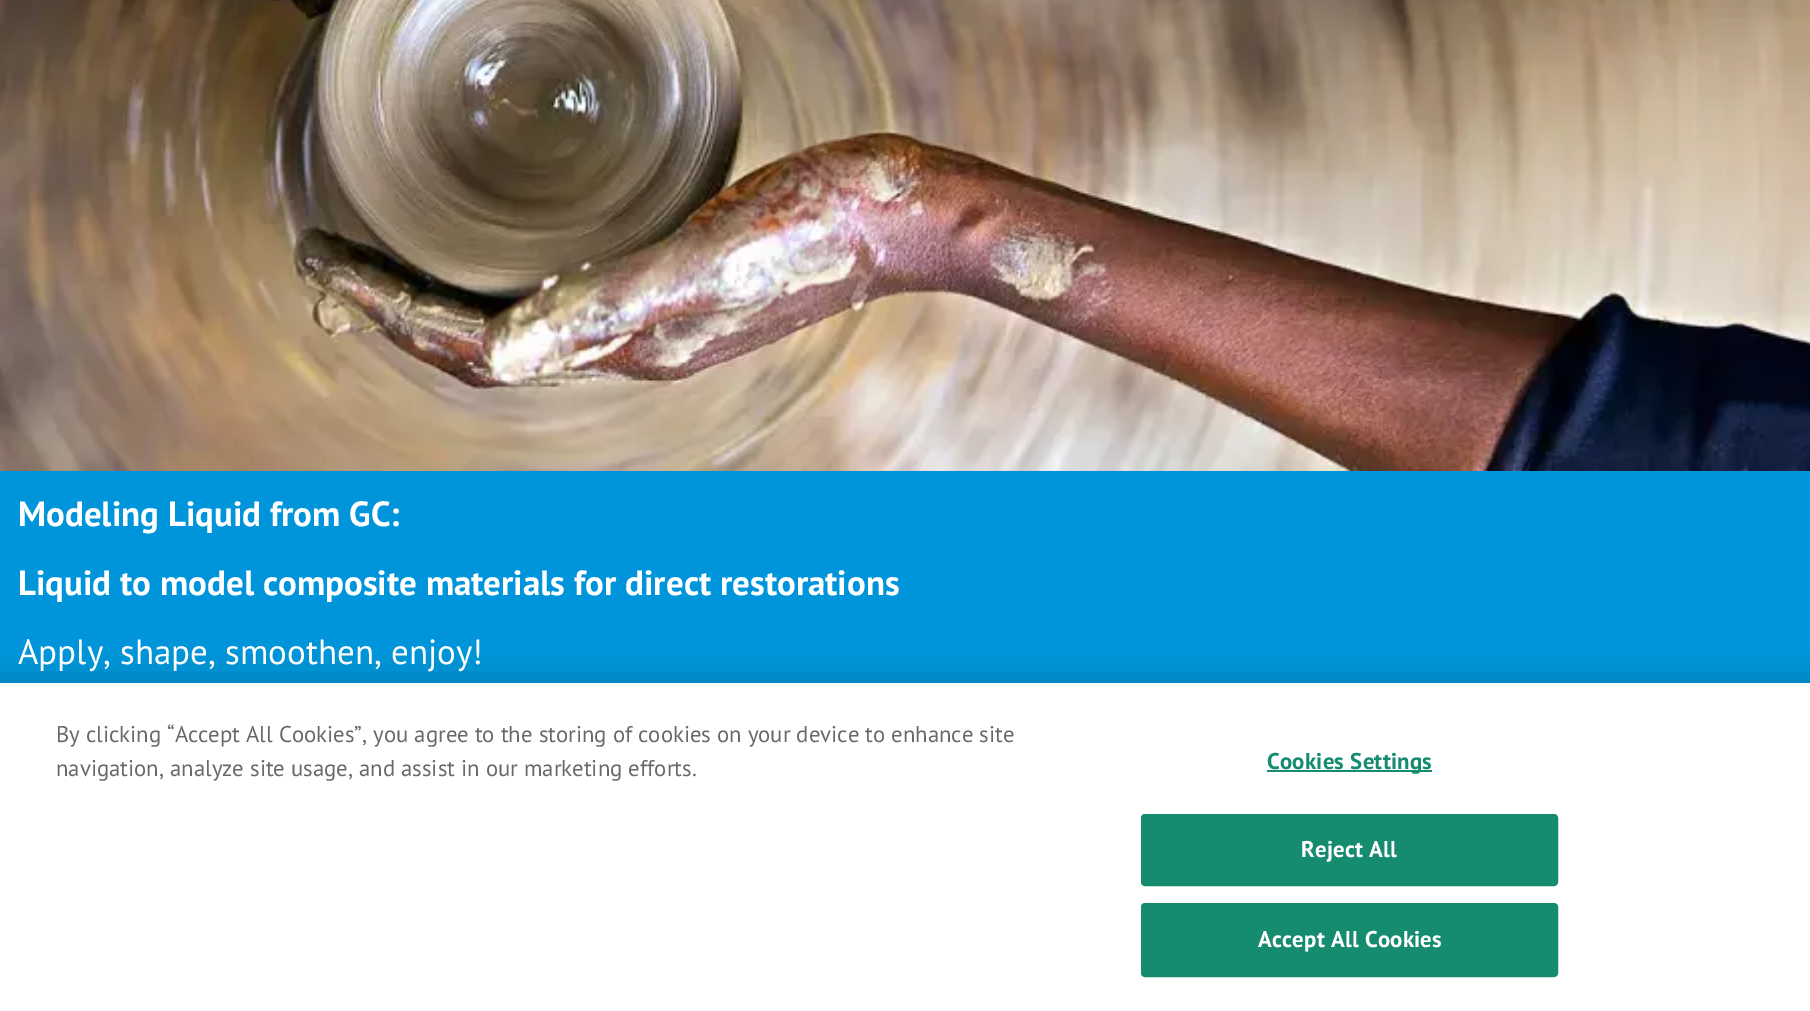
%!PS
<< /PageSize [1810 1011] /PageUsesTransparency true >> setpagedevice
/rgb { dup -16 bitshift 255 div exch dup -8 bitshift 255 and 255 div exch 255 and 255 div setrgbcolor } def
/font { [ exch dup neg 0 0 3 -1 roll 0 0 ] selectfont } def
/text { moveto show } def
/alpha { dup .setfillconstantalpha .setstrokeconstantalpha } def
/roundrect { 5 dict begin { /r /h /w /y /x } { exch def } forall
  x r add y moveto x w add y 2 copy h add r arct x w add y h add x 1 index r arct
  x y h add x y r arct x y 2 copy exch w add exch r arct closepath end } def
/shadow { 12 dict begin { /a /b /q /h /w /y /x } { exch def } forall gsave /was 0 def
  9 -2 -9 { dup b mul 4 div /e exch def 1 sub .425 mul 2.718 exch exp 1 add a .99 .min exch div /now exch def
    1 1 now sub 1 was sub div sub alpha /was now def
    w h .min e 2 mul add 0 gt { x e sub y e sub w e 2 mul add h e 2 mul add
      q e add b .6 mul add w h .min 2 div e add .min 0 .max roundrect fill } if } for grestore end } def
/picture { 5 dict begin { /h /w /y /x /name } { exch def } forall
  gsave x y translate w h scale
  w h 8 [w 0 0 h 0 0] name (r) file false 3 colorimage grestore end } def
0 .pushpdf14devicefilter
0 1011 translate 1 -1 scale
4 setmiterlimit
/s1 { /PTSans-Bold 35 font 16#FFFFFF rgb } def
/s2 { /PTSans-Regular 35 font 16#FFFFFF rgb } def
/s3 { /PTSans-Regular 22.75 font 16#696969 rgb } def
16#0095DA rgb
0 0 1810 1011 rectfill
(pic1.raw) 0 0 1810 471 picture
s1
(Modeling Liquid from GC:) 18 526 text
(Liquid to model composite materials for direct restorations) 18 595 text
s2
(Apply, shape, smoothen, enjoy!) 18 664 text
16#000000 rgb
0 683 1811 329 0 16 0.2 shadow
16#FFFFFF rgb
0 683 1810 328 rectfill
s3
(By clicking “Accept All Cookies”, you agree to the storing of cookies on your device to enhance site) 56 742 text
(navigation, analyze site usage, and assist in our marketing efforts.) 56 776 text
16#158B70 rgb
1267 770 165 2 rectfill
/PTSans-Bold 22.75 font
1267 769 moveto 0.25 0 (Cookies Settings) ashow
1142 815 415 70 3 roundrect gsave fill grestore
2 setlinewidth
stroke
16#FFFFFF rgb
1301 857 moveto 0.25 0 (Reject All) ashow
16#158B70 rgb
1142 904 415 72 3 roundrect gsave fill grestore
stroke
16#FFFFFF rgb
1258 947 moveto 0.25 0 (Accept All Cookies) ashow
.poppdf14devicefilter showpage
